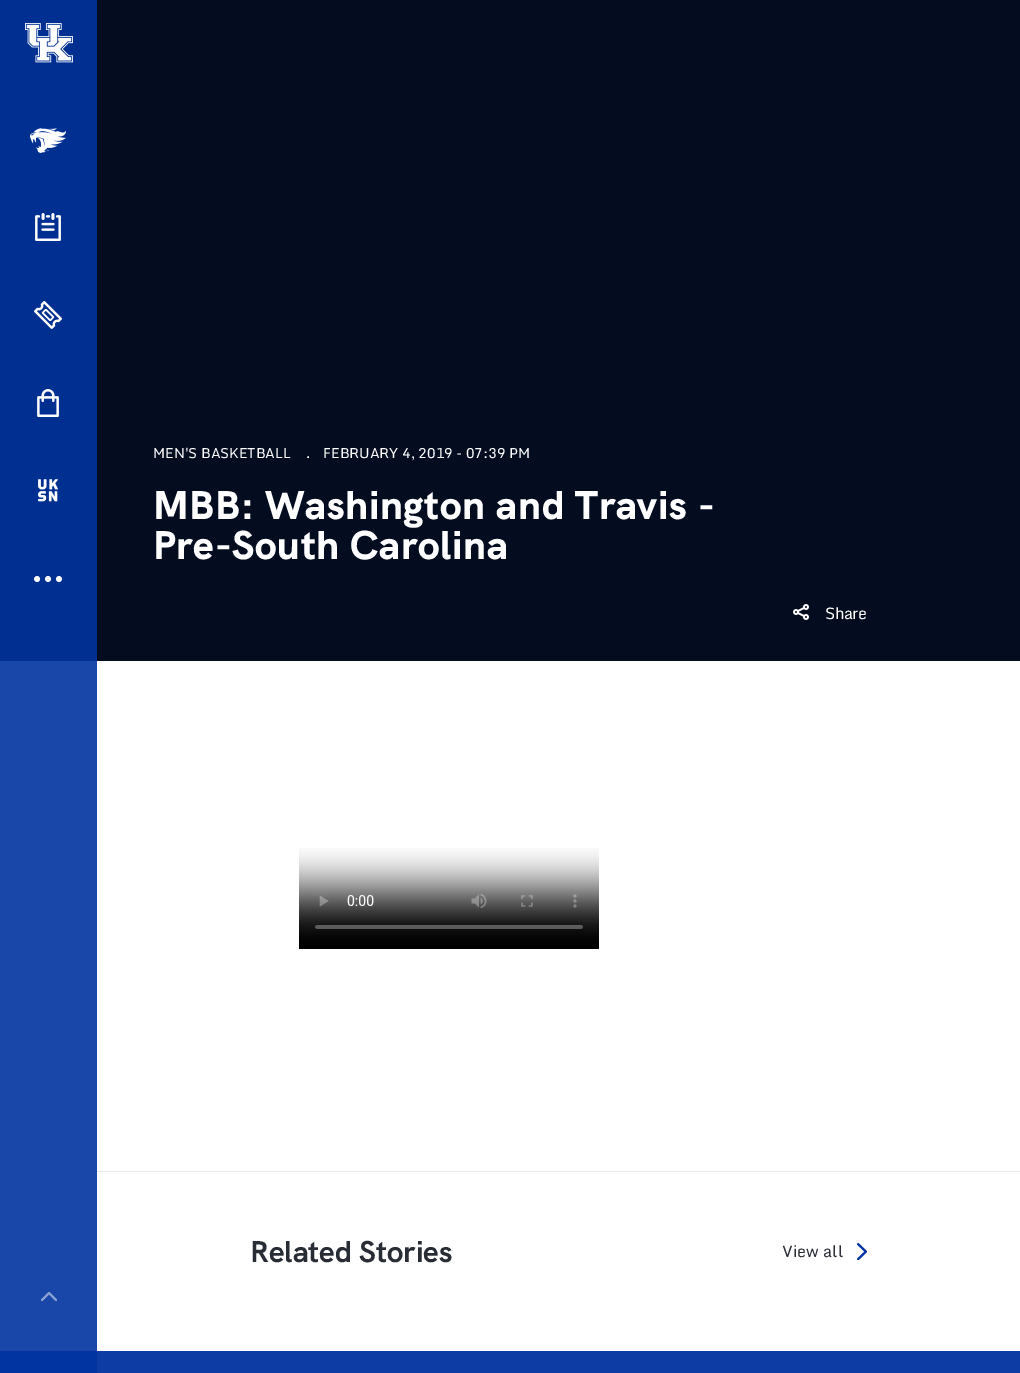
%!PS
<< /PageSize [1020 1373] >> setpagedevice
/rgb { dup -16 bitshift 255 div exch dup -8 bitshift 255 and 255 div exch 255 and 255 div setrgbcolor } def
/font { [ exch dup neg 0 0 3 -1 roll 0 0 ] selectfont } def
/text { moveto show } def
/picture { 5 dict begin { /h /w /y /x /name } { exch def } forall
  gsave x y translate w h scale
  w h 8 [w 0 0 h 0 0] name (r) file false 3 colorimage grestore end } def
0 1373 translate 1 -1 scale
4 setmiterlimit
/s1 { /Monda-Regular 14 font 16#FFFFFF rgb } def
/s2 { /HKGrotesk-Bold 30 font 16#282C34 rgb } def
/s3 { /Monda-Regular 16 font 16#282C34 rgb } def
16#FFFFFF rgb
0 0 1020 1373 rectfill
16#1947A9 rgb
0 661 97 690 rectfill
16#002F92 rgb
0 0 97 661 rectfill
(pic1.raw) 25 23 48 40 picture
(pic2.raw) 30 128 36 25 picture
(pic3.raw) 35 213 26 28 picture
(pic4.raw) 34 301 28 28 picture
(pic5.raw) 37 389 22 28 picture
(pic6.raw) 38 479 20 23 picture
(pic7.raw) 34 576 28 6 picture
16#8CA3D4 rgb
2 setlinewidth
1 setlinecap
1 setlinejoin
42 1300 moveto 49 1293 lineto 56 1300 lineto stroke
16#040D20 rgb
97 0 923 661 rectfill
s1
(MEN'S BASKETBALL) 153 458 text
(.) 306 458 text
(FEBRUARY 4, 2019 - 07:39 PM) 323 458 text
/HKGrotesk-ExtraBold 40 font
153 519 moveto 0.7 0 (MBB: Washington and Travis -) ashow
153 559 moveto 0.7 0 (Pre-South Carolina) ashow
(pic8.raw) 793 604 16 16 picture
/Monda-Regular 16 font
825 619 moveto -0.5 0 (Share) ashow
(pic9.raw) 299 848 300 101 picture
16#E9E9EA rgb
97 1171 923 1 rectfill
s2
(Related Stories) 250 1262 text
s3
(View all) 782 1257 text
(pic10.raw) 857 1243 10 17 picture
16#0D3DA4 rgb
97 1351 923 22 rectfill
16#0134A0 rgb
0 1351 97 22 rectfill
showpage
